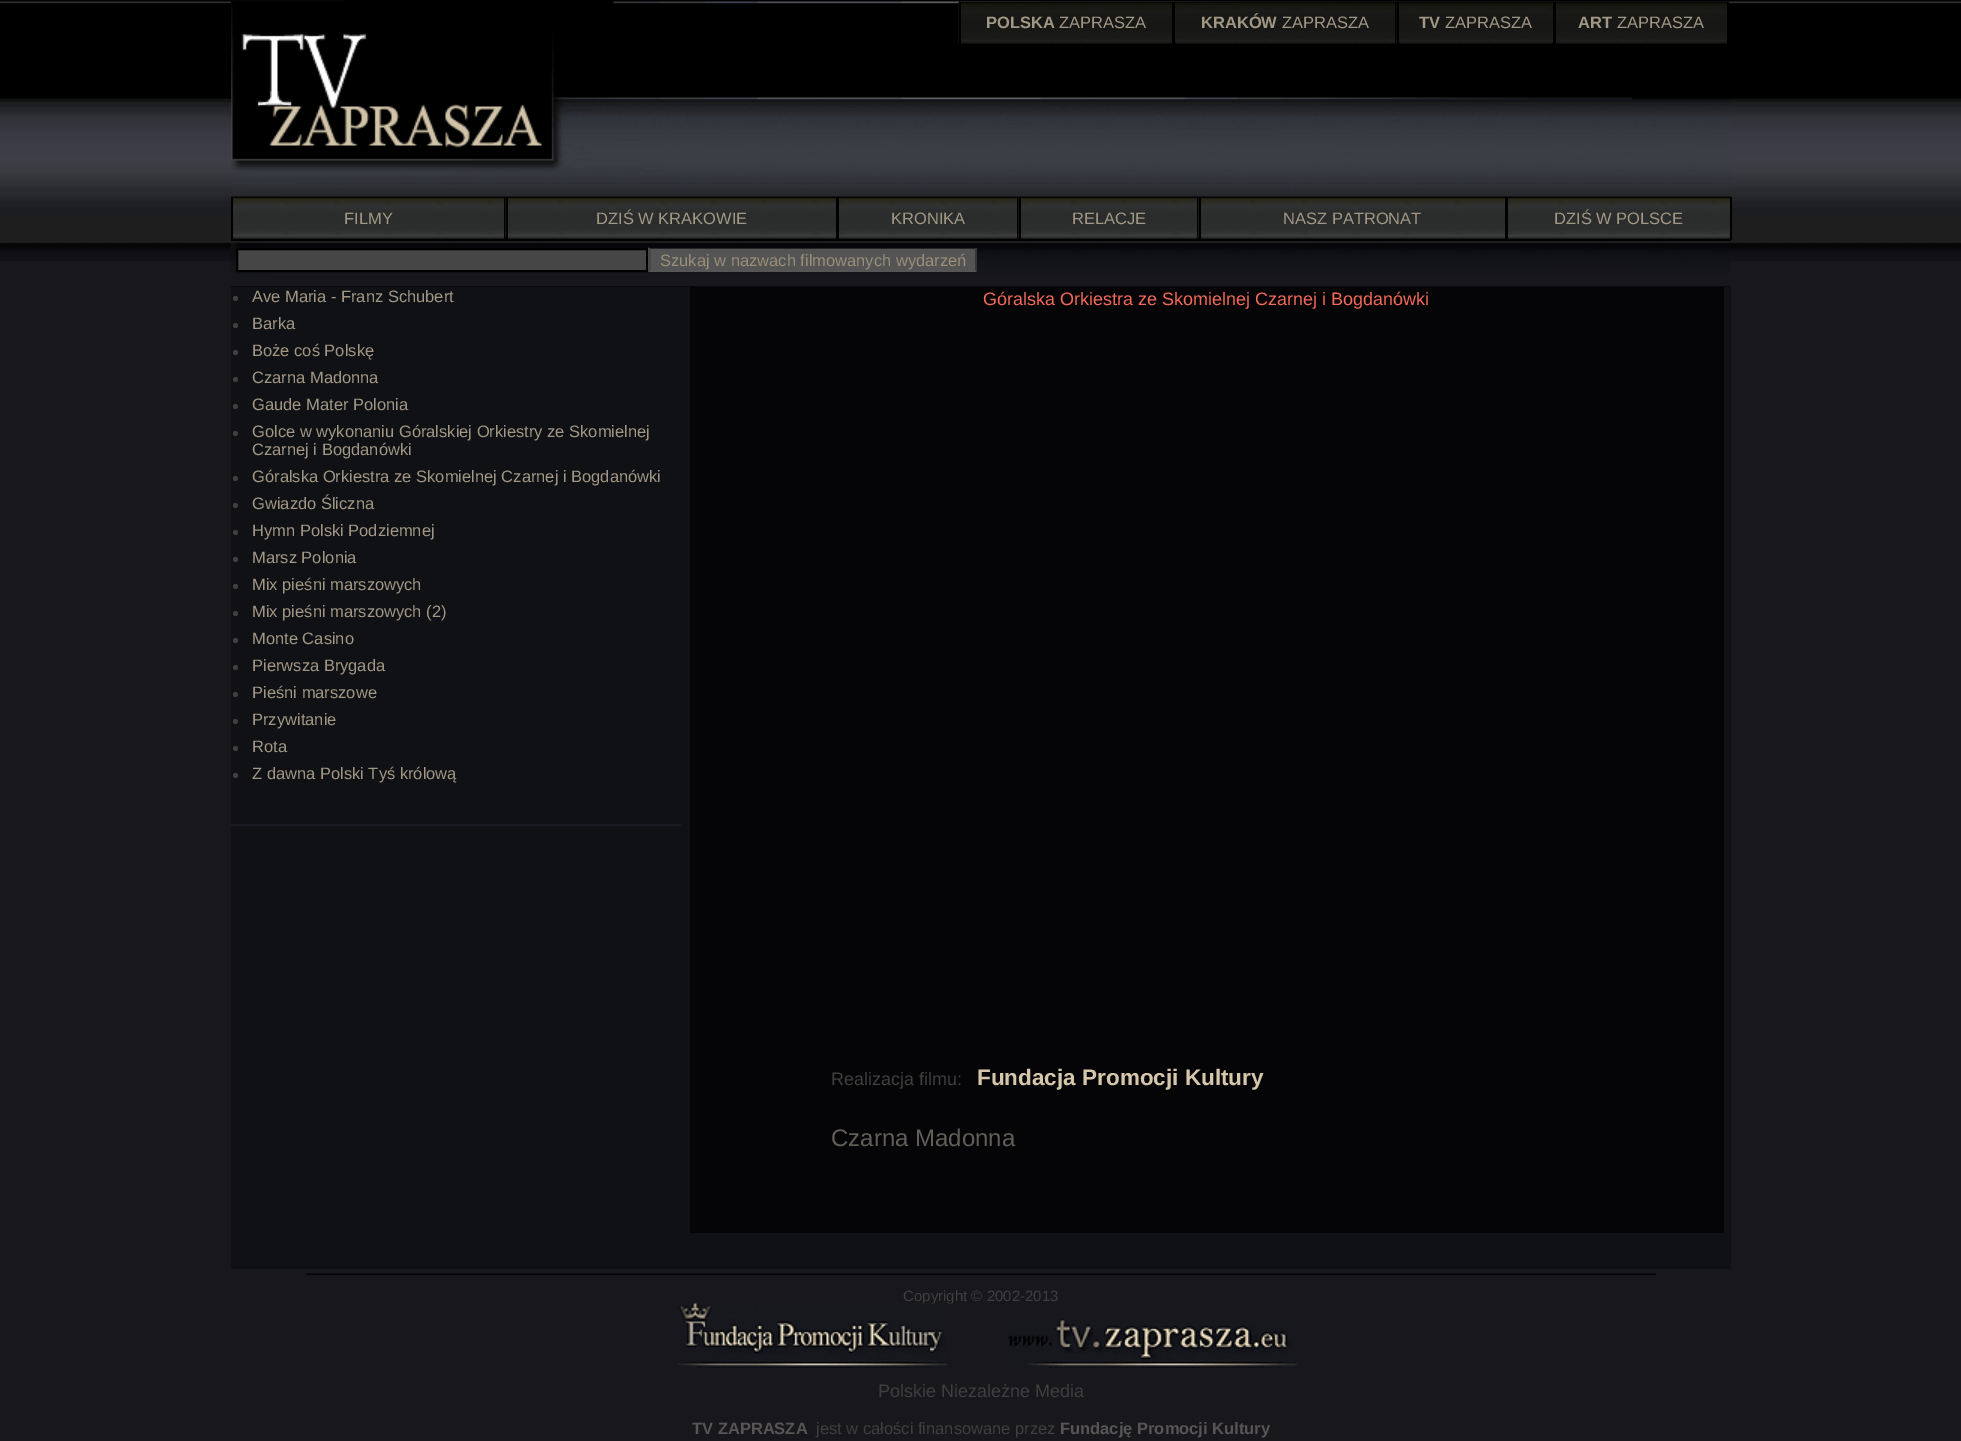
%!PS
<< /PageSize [1961 1441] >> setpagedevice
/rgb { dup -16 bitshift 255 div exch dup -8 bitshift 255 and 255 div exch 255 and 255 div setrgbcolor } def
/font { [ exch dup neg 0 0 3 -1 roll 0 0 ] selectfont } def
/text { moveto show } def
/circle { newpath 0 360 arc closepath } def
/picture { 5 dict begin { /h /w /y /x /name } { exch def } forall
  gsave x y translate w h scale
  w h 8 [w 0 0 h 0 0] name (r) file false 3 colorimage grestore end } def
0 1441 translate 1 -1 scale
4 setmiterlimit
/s1 { /LiberationSans-Bold 16.5 font 16#A19784 rgb } def
/s2 { /LiberationSans-Regular 16.5 font 16#A19784 rgb } def
/s3 { /LiberationSans-Regular 16.5 font 16#998F79 rgb } def
/s4 { /LiberationSans-Regular 18 font 16#F26959 rgb } def
/s5 { /LiberationSans-Regular 18 font 16#403F3E rgb } def
/s6 { /LiberationSans-Bold 22.5 font 16#D6C7AB rgb } def
/s7 { /LiberationSans-Regular 24 font 16#625E58 rgb } def
/s8 { /LiberationSans-Regular 15 font 16#403F3E rgb } def
/s9 { /LiberationSans-Bold 16.5 font 16#595555 rgb } def
/s10 { /LiberationSans-Regular 16.5 font 16#403F3E rgb } def
16#17171C rgb
0 0 1961 1441 rectfill
(pic1.raw) 0 0 1961 261 picture
16#000000 rgb
231 286 1500 1 rectfill
(pic2.raw) 231 0 1500 287 picture
(pic3.raw) 231 0 330 171 picture
(pic4.raw) 958 1 215 44 picture
1172 2 1 43 rectfill
959 44 214 1 rectfill
959 2 2 43 rectfill
s1
(POLSKA) 986 28 text
s2
(ZAPRASZA) 1059 28 text
(pic5.raw) 1173 1 224 43 picture
16#000000 rgb
1395 2 2 43 rectfill
1173 2 2 43 rectfill
s1
(KRAKÓW) 1201 28 text
s2
(ZAPRASZA) 1282 28 text
(pic6.raw) 1396 1 158 44 picture
16#000000 rgb
1553 2 1 43 rectfill
1397 44 157 1 rectfill
1397 2 2 43 rectfill
s1
(TV) 1419 28 text
s2
(ZAPRASZA) 1445 28 text
(pic7.raw) 1554 1 174 43 picture
16#000000 rgb
1727 2 2 43 rectfill
1554 2 2 43 rectfill
s1
(ART) 1578 28 text
s2
(ZAPRASZA) 1617 28 text
(pic8.raw) 561 118 58 26 picture
(pic9.raw) 231 196 275 43 picture
16#000000 rgb
504 197 2 43 rectfill
231 239 275 2 rectfill
231 197 2 43 rectfill
s2
(FILMY) 344 224 text
(pic10.raw) 505 196 332 44 picture
16#000000 rgb
836 197 1 43 rectfill
506 239 331 2 rectfill
506 197 2 43 rectfill
s2
(DZIŚ W KRAKOWIE) 596 224 text
(pic11.raw) 837 196 182 43 picture
16#000000 rgb
1017 197 2 43 rectfill
837 239 182 2 rectfill
837 197 2 43 rectfill
s2
(KRONIKA) 891 224 text
(pic12.raw) 1018 196 181 44 picture
16#000000 rgb
1197 197 2 43 rectfill
1019 239 180 2 rectfill
1019 197 2 43 rectfill
s2
(RELACJE) 1072 224 text
(pic13.raw) 1198 196 308 44 picture
16#000000 rgb
1505 197 1 43 rectfill
1199 239 307 2 rectfill
1199 197 2 43 rectfill
s2
(NASZ PATRONAT) 1283 224 text
(pic14.raw) 1506 196 225 43 picture
16#000000 rgb
1730 197 2 43 rectfill
1506 239 225 2 rectfill
1506 197 2 43 rectfill
s2
(DZIŚ W POLSCE) 1554 224 text
16#464646 rgb
237 249 moveto 647 249 lineto 647 271 lineto 237 271 lineto closepath gsave fill grestore
16#000000 rgb
2 setlinewidth
stroke
16#545454 rgb
651 249 324 21 rectfill
16#242424 rgb
648 248 moveto 976 248 lineto 975 249 lineto 651 249 lineto closepath fill
16#363636 rgb
975 248 2 24 rectfill
16#565656 rgb
976 272 moveto 648 272 lineto 651 270 lineto 975 270 lineto closepath fill
16#484848 rgb
648 271.5 moveto 648 247.5 lineto 651 249 lineto 651 270 lineto closepath fill
s3
(Szukaj w nazwach filmowanych wydarzeń) 660 266 text
16#101115 rgb
231 287 1500 982 rectfill
16#403F3E rgb
235.5 298.5 2.5 circle fill
s2
(Ave Maria - Franz Schubert) 252 302 text
16#403F3E rgb
235.5 325.5 2.5 circle fill
s2
(Barka) 252 329 text
16#403F3E rgb
235.5 352.5 2.5 circle fill
s2
(Boże coś Polskę) 252 356 text
16#403F3E rgb
235.5 379.5 2.5 circle fill
s2
(Czarna Madonna) 252 383 text
16#403F3E rgb
235.5 406.5 2.5 circle fill
s2
(Gaude Mater Polonia) 252 410 text
16#403F3E rgb
235.5 433.5 2.5 circle fill
s2
(Golce w wykonaniu Góralskiej Orkiestry ze Skomielnej) 252 437 text
(Czarnej i Bogdanówki) 252 455 text
16#403F3E rgb
235.5 478.5 2.5 circle fill
s2
(Góralska Orkiestra ze Skomielnej Czarnej i Bogdanówki) 252 482 text
16#403F3E rgb
235.5 505.5 2.5 circle fill
s2
(Gwiazdo Śliczna) 252 509 text
16#403F3E rgb
235.5 532.5 2.5 circle fill
s2
(Hymn Polski Podziemnej) 252 536 text
16#403F3E rgb
235.5 559.5 2.5 circle fill
s2
(Marsz Polonia) 252 563 text
16#403F3E rgb
235.5 586.5 2.5 circle fill
s2
(Mix pieśni marszowych) 252 590 text
16#403F3E rgb
235.5 613.5 2.5 circle fill
s2
(Mix pieśni marszowych \(2\)) 252 617 text
16#403F3E rgb
235.5 640.5 2.5 circle fill
s2
(Monte Casino) 252 644 text
16#403F3E rgb
235.5 667.5 2.5 circle fill
s2
(Pierwsza Brygada) 252 671 text
16#403F3E rgb
235.5 694.5 2.5 circle fill
s2
(Pieśni marszowe) 252 698 text
16#403F3E rgb
235.5 721.5 2.5 circle fill
s2
(Przywitanie) 252 725 text
16#403F3E rgb
235.5 748.5 2.5 circle fill
s2
(Rota) 252 752 text
16#403F3E rgb
235.5 775.5 2.5 circle fill
s2
(Z dawna Polski Tyś królową) 252 779 text
16#181A21 rgb
231 824 450 2 rectfill
16#050507 rgb
690 287 1034 946 rectfill
s4
(Góralska Orkiestra ze Skomielnej Czarnej i Bogdanówki) 983 305 text
s5
(Realizacja filmu:) 831 1085 text
s6
(Fundacja Promocji Kultury) 977 1085 text
s7
(Czarna Madonna) 831 1146 text
(pic15.raw) 306 1273 1350 2 picture
s8
(Copyright © 2002-2013) 903 1301 text
(pic16.raw) 677 1303 276 65 picture
(pic17.raw) 1008 1318 290 50 picture
s5
(Polskie Niezależne Media) 878 1397 text
s9
(TV ZAPRASZA) 692 1434 text
s10
(jest w całości finansowane przez) 816 1434 text
s9
(Fundację Promocji Kultury) 1060 1434 text
showpage
